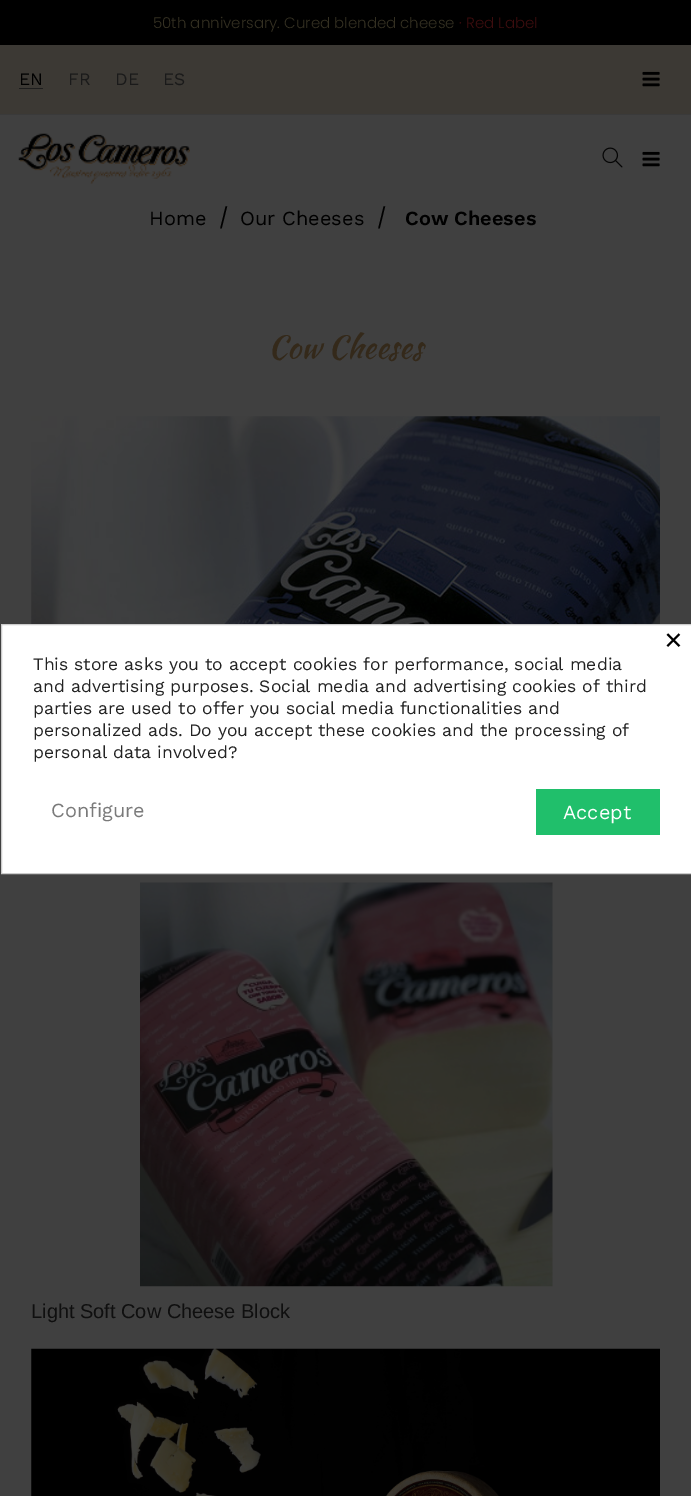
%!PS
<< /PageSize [691 1496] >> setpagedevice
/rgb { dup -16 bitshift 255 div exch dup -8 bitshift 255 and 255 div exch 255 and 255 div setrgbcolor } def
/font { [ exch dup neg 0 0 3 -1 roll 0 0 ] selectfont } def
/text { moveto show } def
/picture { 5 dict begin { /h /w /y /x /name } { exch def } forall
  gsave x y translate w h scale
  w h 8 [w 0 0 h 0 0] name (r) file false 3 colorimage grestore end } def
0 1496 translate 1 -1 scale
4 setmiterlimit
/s1 { /Poppins-Light 15 font 16#343022 rgb } def
/s2 { /Poppins-Light 15 font 16#3D0D0E rgb } def
/s3 { /WorkSans-Regular 17.5 font 16#000000 rgb } def
/s4 { /WorkSans-Regular 17.5 font 16#1A1A1A rgb } def
/s5 { /WorkSans-Regular 20 font 16#000000 rgb } def
/s6 { /Poppins-Regular 20 font 16#000000 rgb } def
/s7 { /WorkSans-SemiBold 20 font 16#000000 rgb } def
/s8 { /KaushanScript-Regular 31.25 font 16#34291A rgb } def
/s9 { /LiberationSans-Regular 20 font 16#0F0F0F rgb } def
/s10 { /WorkSans-Regular 31.25 font 16#000000 rgb } def
/s11 { /WorkSans-Regular 17.5 font 16#232323 rgb } def
/s12 { /WorkSans-Regular 20 font 16#7A7A7A rgb } def
/s13 { /WorkSans-Regular 20 font 16#FFFFFF rgb } def
16#404040 rgb
0 0 691 1496 rectfill
16#000000 rgb
0 0 691 45 rectfill
s1
(50th anniversary. Cured blended cheese) 153 28 text
s2
(· Red Label) 459 28 text
16#3C3934 rgb
0 45 691 69 rectfill
16#3A3A3A rgb
0 114 691 1 rectfill
s3
(EN) 19 85 text
16#1E1E1E rgb
19 88 24 1 rectfill
s4
(FR) 68 85 text
(DE) 115 85 text
(ES) 163 85 text
(pic1.raw) 642 71 18 16 picture
(pic2.raw) 18 133 172 51 picture
(pic3.raw) 602 147 21 21 picture
(pic4.raw) 642 151 18 16 picture
s5
(Home) 149 225 text
s6
(/) 219 225 text
s5
(Our Cheeses) 240 225 text
s6
(/) 377 225 text
s7
(Cow Cheeses) 405 225 text
s8
(Cow Cheeses) 268 358 text
(pic5.raw) 31 416 629 208 picture
(pic6.raw) 140 882 413 405 picture
s9
(Light Soft Cow Cheese Block) 31 1318 text
(pic7.raw) 31 1348 629 148 picture
16#FFFFFF rgb
1.5 624.5 moveto 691.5 624.5 lineto 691.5 873.5 lineto 1.5 873.5 lineto closepath gsave fill grestore
16#CCCCCC rgb
stroke
s10
(×) 664 650 text
s11
(This store asks you to accept cookies for performance, social media) 33 670 text
gsave
34 655 626 109 rectclip
(and advertising purposes. Social media and advertising cookies of third) 33 692 text
grestore
(parties are used to offer you social media functionalities and) 33 714 text
(personalized ads. Do you accept these cookies and the processing of) 33 736 text
(personal data involved?) 33 758 text
s12
(Configure) 51 817 text
16#20BF6B rgb
536 789 124 46 rectfill
s13
(Accept) 563 819 text
showpage
